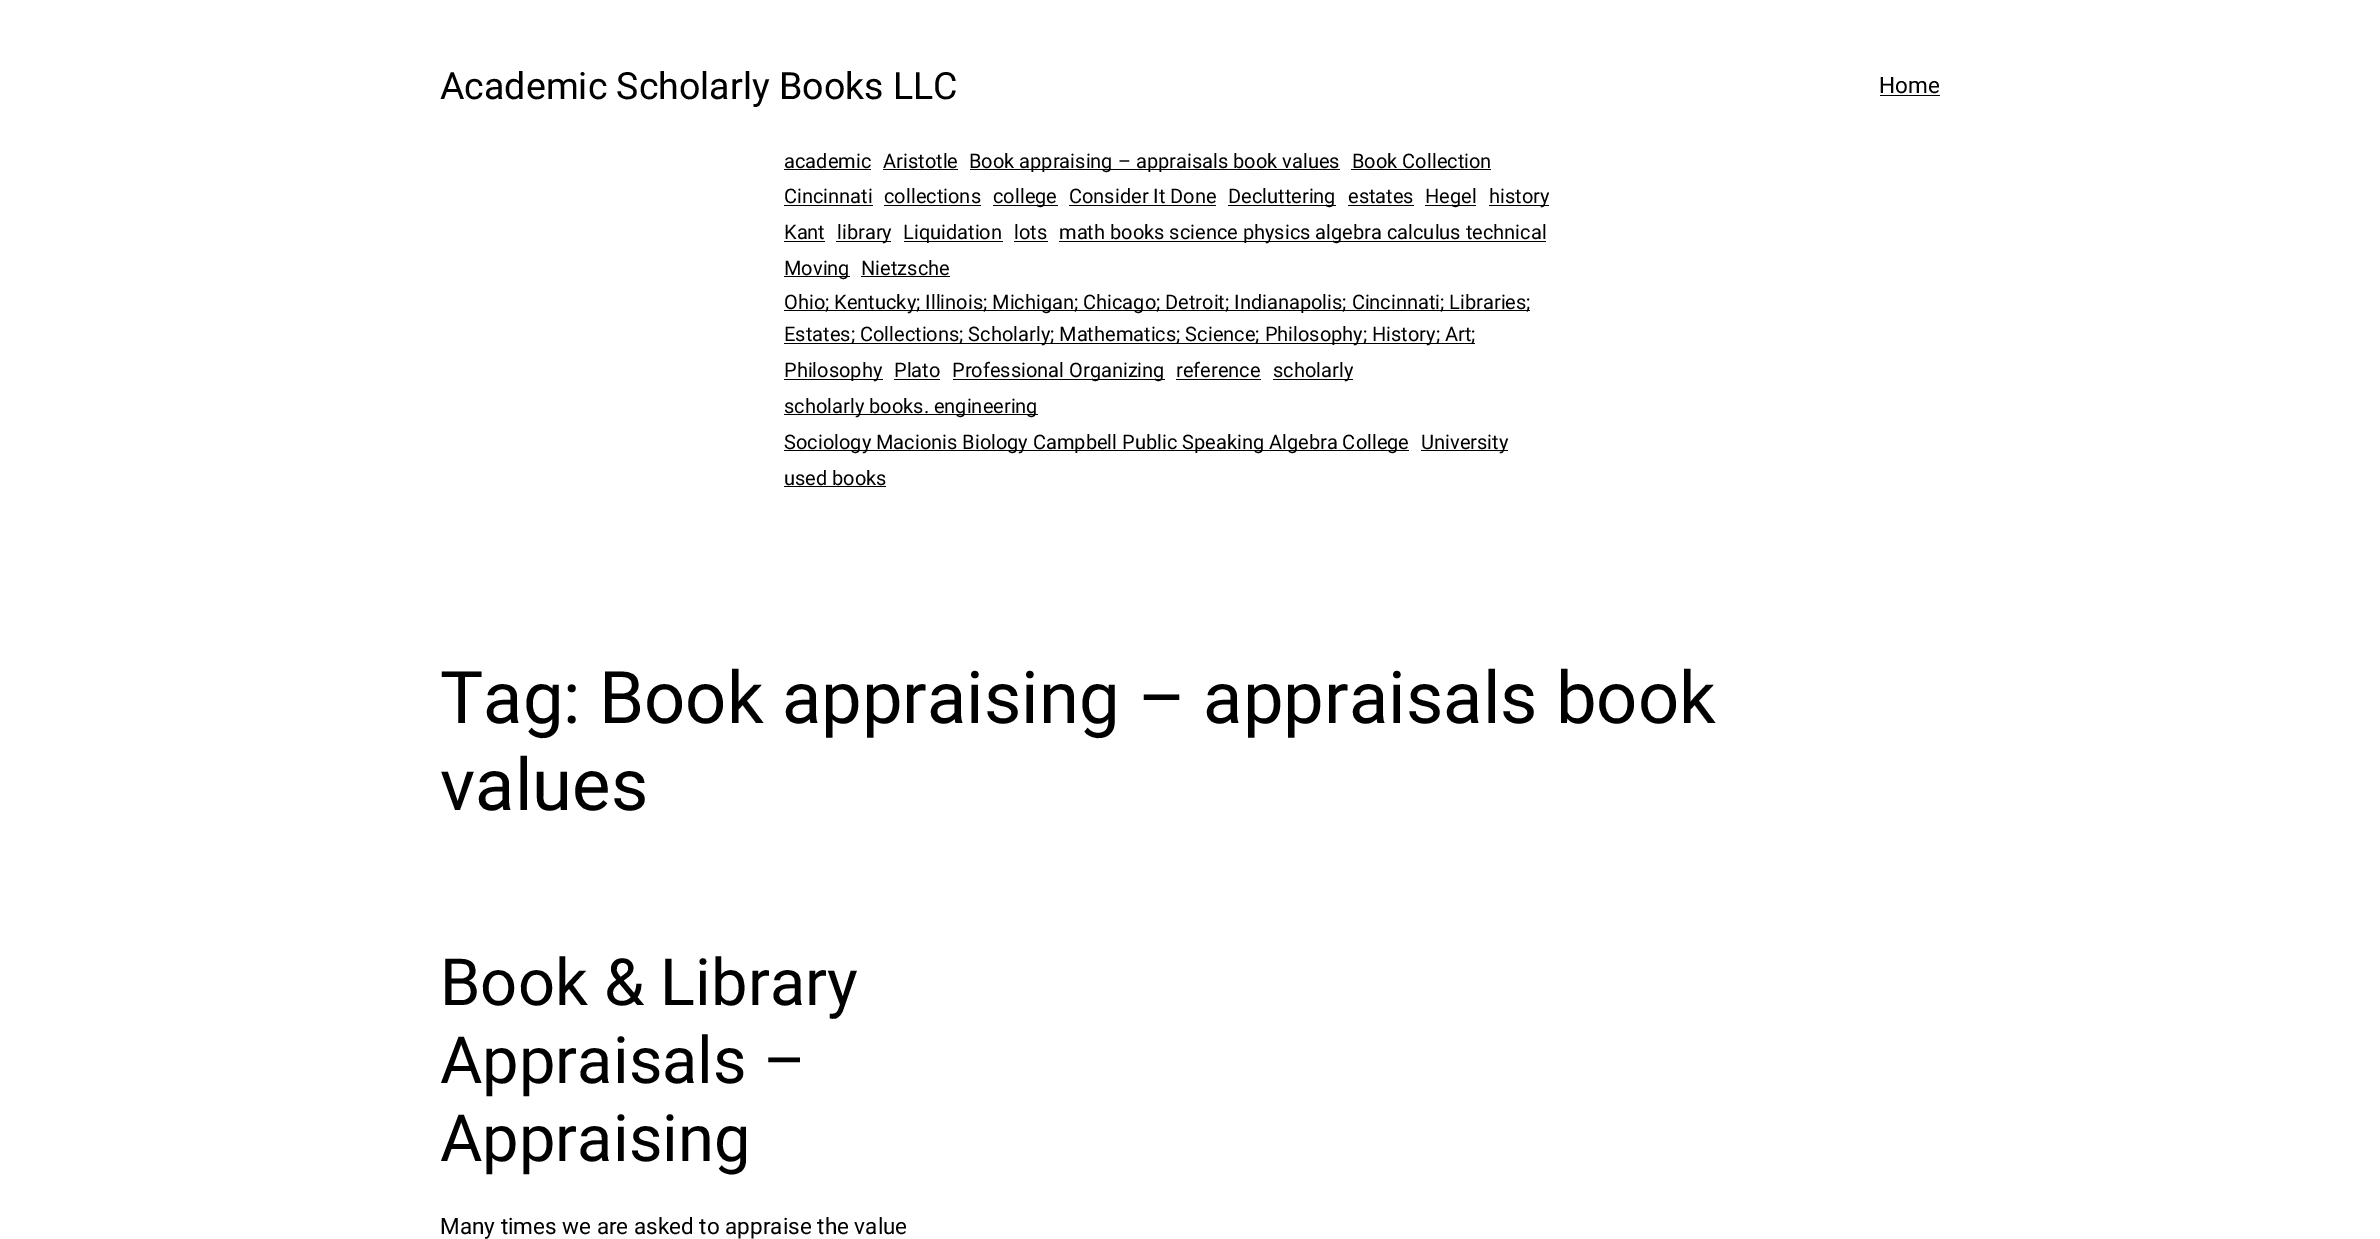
%!PS
<< /PageSize [2380 1239] >> setpagedevice
/rgb { dup -16 bitshift 255 div exch dup -8 bitshift 255 and 255 div exch 255 and 255 div setrgbcolor } def
/font { [ exch dup neg 0 0 3 -1 roll 0 0 ] selectfont } def
/text { moveto show } def
0 1239 translate 1 -1 scale
4 setmiterlimit
/s1 { /Roboto-Regular 37.5 font 16#000000 rgb } def
/s2 { /Roboto-Regular 22.5 font 16#000000 rgb } def
/s3 { /Roboto-Regular 20 font 16#000000 rgb } def
/s4 { /Roboto-Regular 72.5 font 16#000000 rgb } def
/s5 { /Roboto-Regular 65 font 16#000000 rgb } def
16#FFFFFF rgb
0 0 2380 1239 rectfill
s1
(Academic Scholarly Books LLC) 440 99 text
s2
(Home) 1879 93 text
1880 95 60 1 rectfill
s3
(academic) 784 168 text
784 169 87 1 rectfill
(Aristotle) 883 168 text
883 169 75 1 rectfill
970 169 370 1 rectfill
(Book appraising – appraisals book values) 969 168 text
(Book Collection) 1352 168 text
1351 169 140 1 rectfill
(Cincinnati) 784 203 text
784 205 89 1 rectfill
(collections) 884 203 text
884 205 97 1 rectfill
993 205 65 1 rectfill
(college) 993 203 text
(Consider It Done) 1069 203 text
1069 205 147 1 rectfill
1228 205 108 1 rectfill
(Decluttering) 1228 203 text
(estates) 1348 203 text
1348 205 66 1 rectfill
1425 205 51 1 rectfill
(Hegel) 1425 203 text
1489 205 60 1 rectfill
(history) 1489 203 text
(Kant) 784 239 text
784 241 41 1 rectfill
836 241 55 1 rectfill
(library) 837 239 text
904 241 99 1 rectfill
(Liquidation) 903 239 text
(lots) 1014 239 text
1014 241 34 1 rectfill
1059 241 487 1 rectfill
(math books science physics algebra calculus technical) 1059 239 text
784 276 66 1 rectfill
(Moving) 784 275 text
(Nietzsche) 861 275 text
861 276 89 1 rectfill
784 310 746 1 rectfill
(Ohio; Kentucky; Illinois; Michigan; Chicago; Detroit; Indianapolis; Cincinnati; Libraries;) 784 309 text
784 343 691 1 rectfill
(Estates; Collections; Scholarly; Mathematics; Science; Philosophy; History; Art;) 784 341 text
784 379 99 1 rectfill
(Philosophy) 784 377 text
(Plato) 894 377 text
894 379 46 1 rectfill
953 379 212 1 rectfill
(Professional Organizing) 952 377 text
(reference) 1176 377 text
1176 379 85 1 rectfill
1273 379 80 1 rectfill
(scholarly) 1273 377 text
784 414 254 1 rectfill
(scholarly books. engineering) 784 413 text
784 450 625 1 rectfill
(Sociology Macionis Biology Campbell Public Speaking Algebra College) 784 449 text
1421 450 87 1 rectfill
(University) 1421 449 text
(used books) 784 485 text
784 486 102 1 rectfill
s4
(Tag: Book appraising – appraisals book) 440 723 text
(values) 440 810 text
s5
(Book & Library) 440 1005 text
(Appraisals –) 440 1083 text
(Appraising) 440 1161 text
s2
(Many times we are asked to appraise the value) 440 1234 text
showpage
